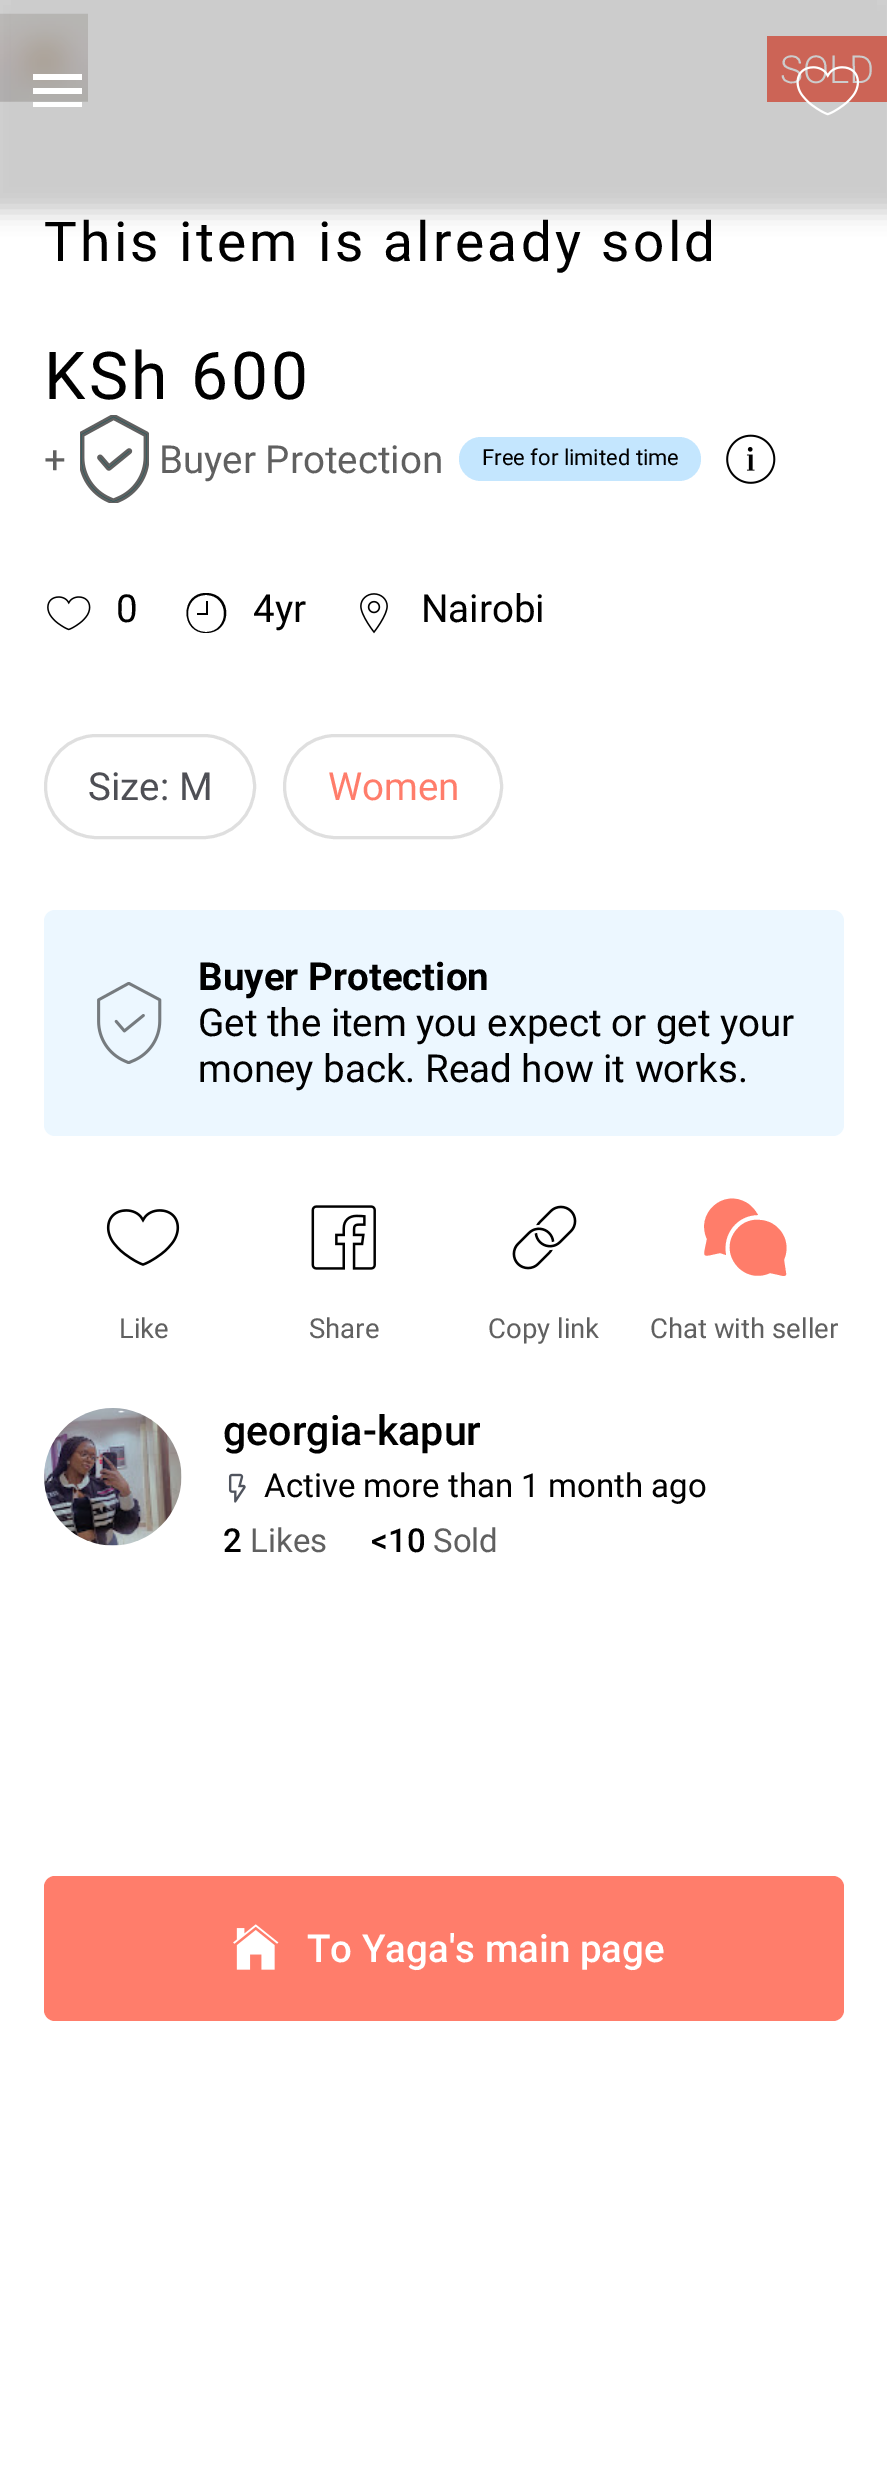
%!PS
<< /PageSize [887 2480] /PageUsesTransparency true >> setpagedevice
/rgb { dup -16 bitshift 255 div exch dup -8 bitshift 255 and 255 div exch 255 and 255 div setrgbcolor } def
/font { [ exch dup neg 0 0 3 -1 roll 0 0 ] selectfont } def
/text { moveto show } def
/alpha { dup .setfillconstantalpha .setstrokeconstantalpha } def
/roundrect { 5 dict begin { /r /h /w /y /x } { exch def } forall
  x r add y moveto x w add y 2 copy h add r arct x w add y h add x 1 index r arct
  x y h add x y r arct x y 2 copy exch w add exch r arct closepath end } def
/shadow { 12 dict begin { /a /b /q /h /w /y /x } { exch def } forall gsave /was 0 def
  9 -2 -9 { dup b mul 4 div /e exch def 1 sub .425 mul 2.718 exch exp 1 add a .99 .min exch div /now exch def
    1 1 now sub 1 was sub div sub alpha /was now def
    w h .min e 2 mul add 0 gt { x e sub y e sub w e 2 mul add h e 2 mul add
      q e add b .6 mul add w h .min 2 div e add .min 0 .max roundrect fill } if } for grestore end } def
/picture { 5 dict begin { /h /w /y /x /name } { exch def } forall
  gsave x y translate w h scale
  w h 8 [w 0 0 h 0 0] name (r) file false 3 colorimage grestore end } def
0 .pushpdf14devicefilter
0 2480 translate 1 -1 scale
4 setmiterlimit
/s1 { /Roboto-Light 38.5 font 16#FFFFFF rgb } def
/s2 { /Roboto-Regular 38.5 font 16#606060 rgb } def
/s3 { /Roboto-Regular 22 font 16#000000 rgb } def
/s4 { /Roboto-Regular 38.5 font 16#000000 rgb } def
/s5 { /Roboto-Regular 38.5 font 16#4E4F55 rgb } def
/s6 { /Roboto-Regular 38.5 font 16#FF7D6B rgb } def
/s7 { /Roboto-Bold 38.5 font 16#000000 rgb } def
/s8 { /Roboto-Regular 27.5 font 16#606060 rgb } def
/s9 { /Roboto-Medium 41.25 font 16#000000 rgb } def
/s10 { /Roboto-Regular 33 font 16#000000 rgb } def
/s11 { /Roboto-Medium 33 font 16#000000 rgb } def
/s12 { /Roboto-Regular 33 font 16#606060 rgb } def
/s13 { /Roboto-Medium 38.5 font 16#FFFFFF rgb } def
16#FFFFFF rgb
0 0 887 2480 rectfill
(pic2.raw) 0 13 88 89 picture
16#FF7D6B rgb
767 36 120 66 rectfill
gsave
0 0 moveto 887 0 lineto 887 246 lineto 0 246 lineto closepath 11 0 moveto 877 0 lineto 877 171 lineto 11 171 lineto closepath eoclip newpath
16#000000 rgb
-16 -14 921 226 0 11 0.2 shadow
grestore
s1
(SOLD) 780 83 text
0.2 alpha
16#000000 rgb
11 0 866 171 rectfill
1 alpha
16#FFFFFF rgb
33 107 moveto 82 107 lineto 82 102 lineto 33 102 lineto closepath 33 94 moveto 82 94 lineto 82 88 lineto 33 88 lineto closepath 33 74 moveto 33 80 lineto 82 80 lineto 82 74 lineto closepath fill
(pic1.raw) 796 66 63 50 picture
/Roboto-Regular 55 font
16#000000 rgb
44 261 moveto 3.3 0 (This item is already sold) ashow
/Roboto-Regular 66 font
44 399 moveto 3.3 0 (KSh 600) ashow
s2
(+) 44 473 text
(pic3.raw) 80 415 69 88 picture
(Buyer Protection) 159 473 text
16#C4E6FE rgb
459 437 242 44 22 roundrect fill
s3
(Free for limited time) 482 465 text
(pic4.raw) 726 434 50 50 picture
(pic5.raw) 47 596 44 35 picture
s4
(0) 116 622 text
206 593 moveto 180 593 180 633 206 633 curveto 233 633 233 593 206 593 curveto closepath 206 632 moveto 182 632 182 595 206 595 curveto 230 595 230 632 206 632 curveto closepath 206 613 moveto 197 613 lineto 197 615 lineto 208 615 lineto 208 601 lineto 206 601 lineto closepath fill
(4yr) 253 622 text
(pic6.raw) 360 593 28 41 picture
(Nairobi) 421 622 text
16#DFDFDF rgb
3 setlinewidth
45.5 735.5 209 102 51 roundrect stroke
s5
(Size: M) 88 800 text
16#DFDFDF rgb
284.5 735.5 217 102 51 roundrect stroke
s6
(Women) 328 800 text
16#ECF7FF rgb
44 910 800 226 11 roundrect fill
(pic7.raw) 97 982 65 82 picture
s7
(Buyer Protection) 198 990 text
s4
(Get the item you expect or get your) 198 1036 text
(money back. Read how it works.) 198 1082 text
(pic8.raw) 106 1209 74 57 picture
s8
(Like) 119 1338 text
(pic9.raw) 311 1205 65 65 picture
(Share) 309 1338 text
(pic10.raw) 512 1205 65 65 picture
(Copy link) 488 1338 text
16#FF7D6A rgb
758 1215 moveto 755 1210 752 1206 747 1203 curveto 723 1188 695 1214 707 1239 curveto 703 1259 701 1257 720 1253 curveto 726 1255 lineto 722 1234 737 1215 758 1215 curveto closepath fill
784 1260 moveto 785 1257 lineto 791 1239 778 1221 760 1220 curveto 752 1219 744 1222 739 1227 curveto 715 1250 742 1286 770 1273 curveto 779 1275 lineto 780 1275 787 1278 786 1273 curveto closepath fill
s8
(Chat with seller) 650 1338 text
(pic11.raw) 44 1408 138 138 picture
s9
(georgia-kapur) 223 1445 text
(pic12.raw) 228 1473 18 30 picture
s10
(Active more than 1 month ago) 264 1497 text
s11
(2) 223 1552 text
s12
(Likes) 250 1552 text
s11
(<10) 371 1552 text
s12
(Sold) 433 1552 text
16#FF7D6B rgb
44 1876 800 145 11 roundrect fill
(pic13.raw) 233 1924 46 46 picture
s13
(To Yaga's main page) 307 1962 text
.poppdf14devicefilter showpage
